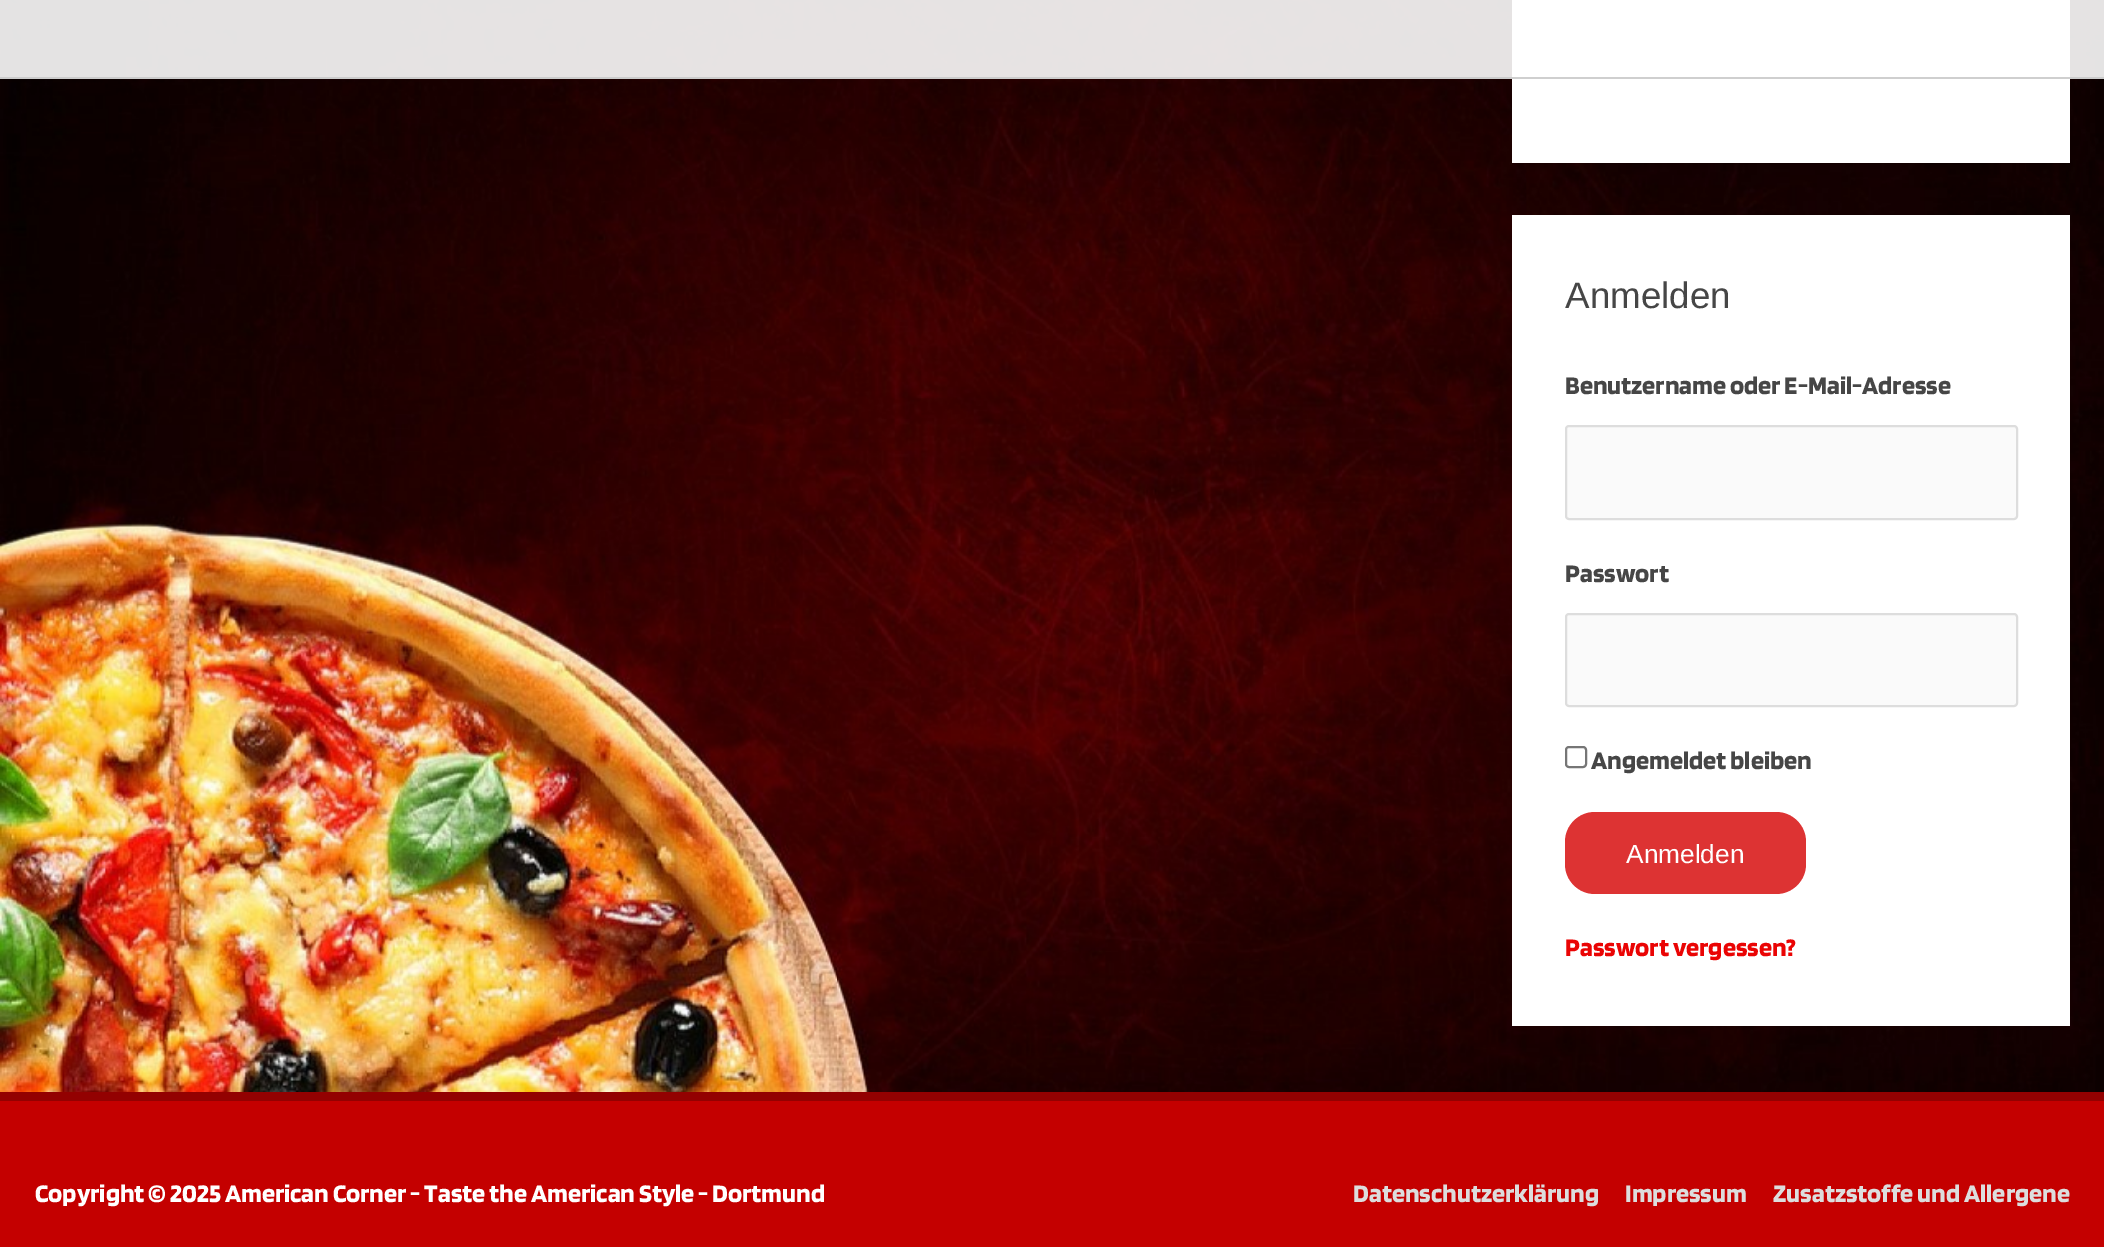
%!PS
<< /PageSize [2104 1247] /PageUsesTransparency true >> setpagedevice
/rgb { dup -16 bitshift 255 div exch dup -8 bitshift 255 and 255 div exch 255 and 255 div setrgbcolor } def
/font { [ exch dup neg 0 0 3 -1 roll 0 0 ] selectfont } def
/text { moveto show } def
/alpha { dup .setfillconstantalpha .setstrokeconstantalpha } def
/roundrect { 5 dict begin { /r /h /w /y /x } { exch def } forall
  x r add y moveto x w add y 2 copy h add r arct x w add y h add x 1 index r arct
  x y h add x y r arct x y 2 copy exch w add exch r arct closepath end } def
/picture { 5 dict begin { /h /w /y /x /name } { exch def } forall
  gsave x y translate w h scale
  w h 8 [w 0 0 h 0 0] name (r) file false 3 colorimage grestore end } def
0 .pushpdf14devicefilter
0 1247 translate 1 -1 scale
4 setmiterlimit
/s1 { /LiberationSans-Regular 36.75 font 16#464646 rgb } def
/s2 { /Blinker-Bold 26.25 font 16#464646 rgb } def
/s3 { /LiberationSans-Regular 26.25 font 16#FFFFFF rgb } def
/s4 { /Blinker-Bold 26.25 font 16#EA0404 rgb } def
/s5 { /Blinker-Bold 26.25 font 16#FFFFFF rgb } def
/s6 { /Blinker-Bold 26.25 font 16#DDDDDD rgb } def
16#FFFFFF rgb
0 0 2104 1247 rectfill
(pic1.raw) 0 0 2104 1092 picture
1512 0 558 163 rectfill
0.99 alpha
16#CECECE rgb
0 77 2104 2 rectfill
0.89 alpha
16#FFFFFF rgb
0 0 2104 77 rectfill
1 alpha
1512 215 558 811 rectfill
s1
(Anmelden) 1565 308 text
s2
(Benutzername oder E-Mail-Adresse) 1565 394 text
16#FAFAFA rgb
1566 426 451 93 3 roundrect gsave fill grestore
16#DDDDDD rgb
2 setlinewidth
stroke
s2
(Passwort) 1565 582 text
16#FAFAFA rgb
1566 614 451 92 3 roundrect gsave fill grestore
16#DDDDDD rgb
stroke
16#767676 rgb
1566 747 20 20 3 roundrect stroke
s2
(Angemeldet bleiben) 1591 769 text
16#DD3333 rgb
1565 812 241 82 30 roundrect fill
s3
(Anmelden) 1626 863 text
s4
(Passwort vergessen?) 1565 956 text
16#930101 rgb
0 1092 2104 9 rectfill
16#C40000 rgb
0 1101 2104 146 rectfill
s5
(Copyright © 2025 American Corner - Taste the American Style - Dortmund) 35 1202 text
s6
(Datenschutzerklärung) 1353 1202 text
(Impressum) 1625 1202 text
(Zusatzstoffe und Allergene) 1773 1202 text
.poppdf14devicefilter showpage
